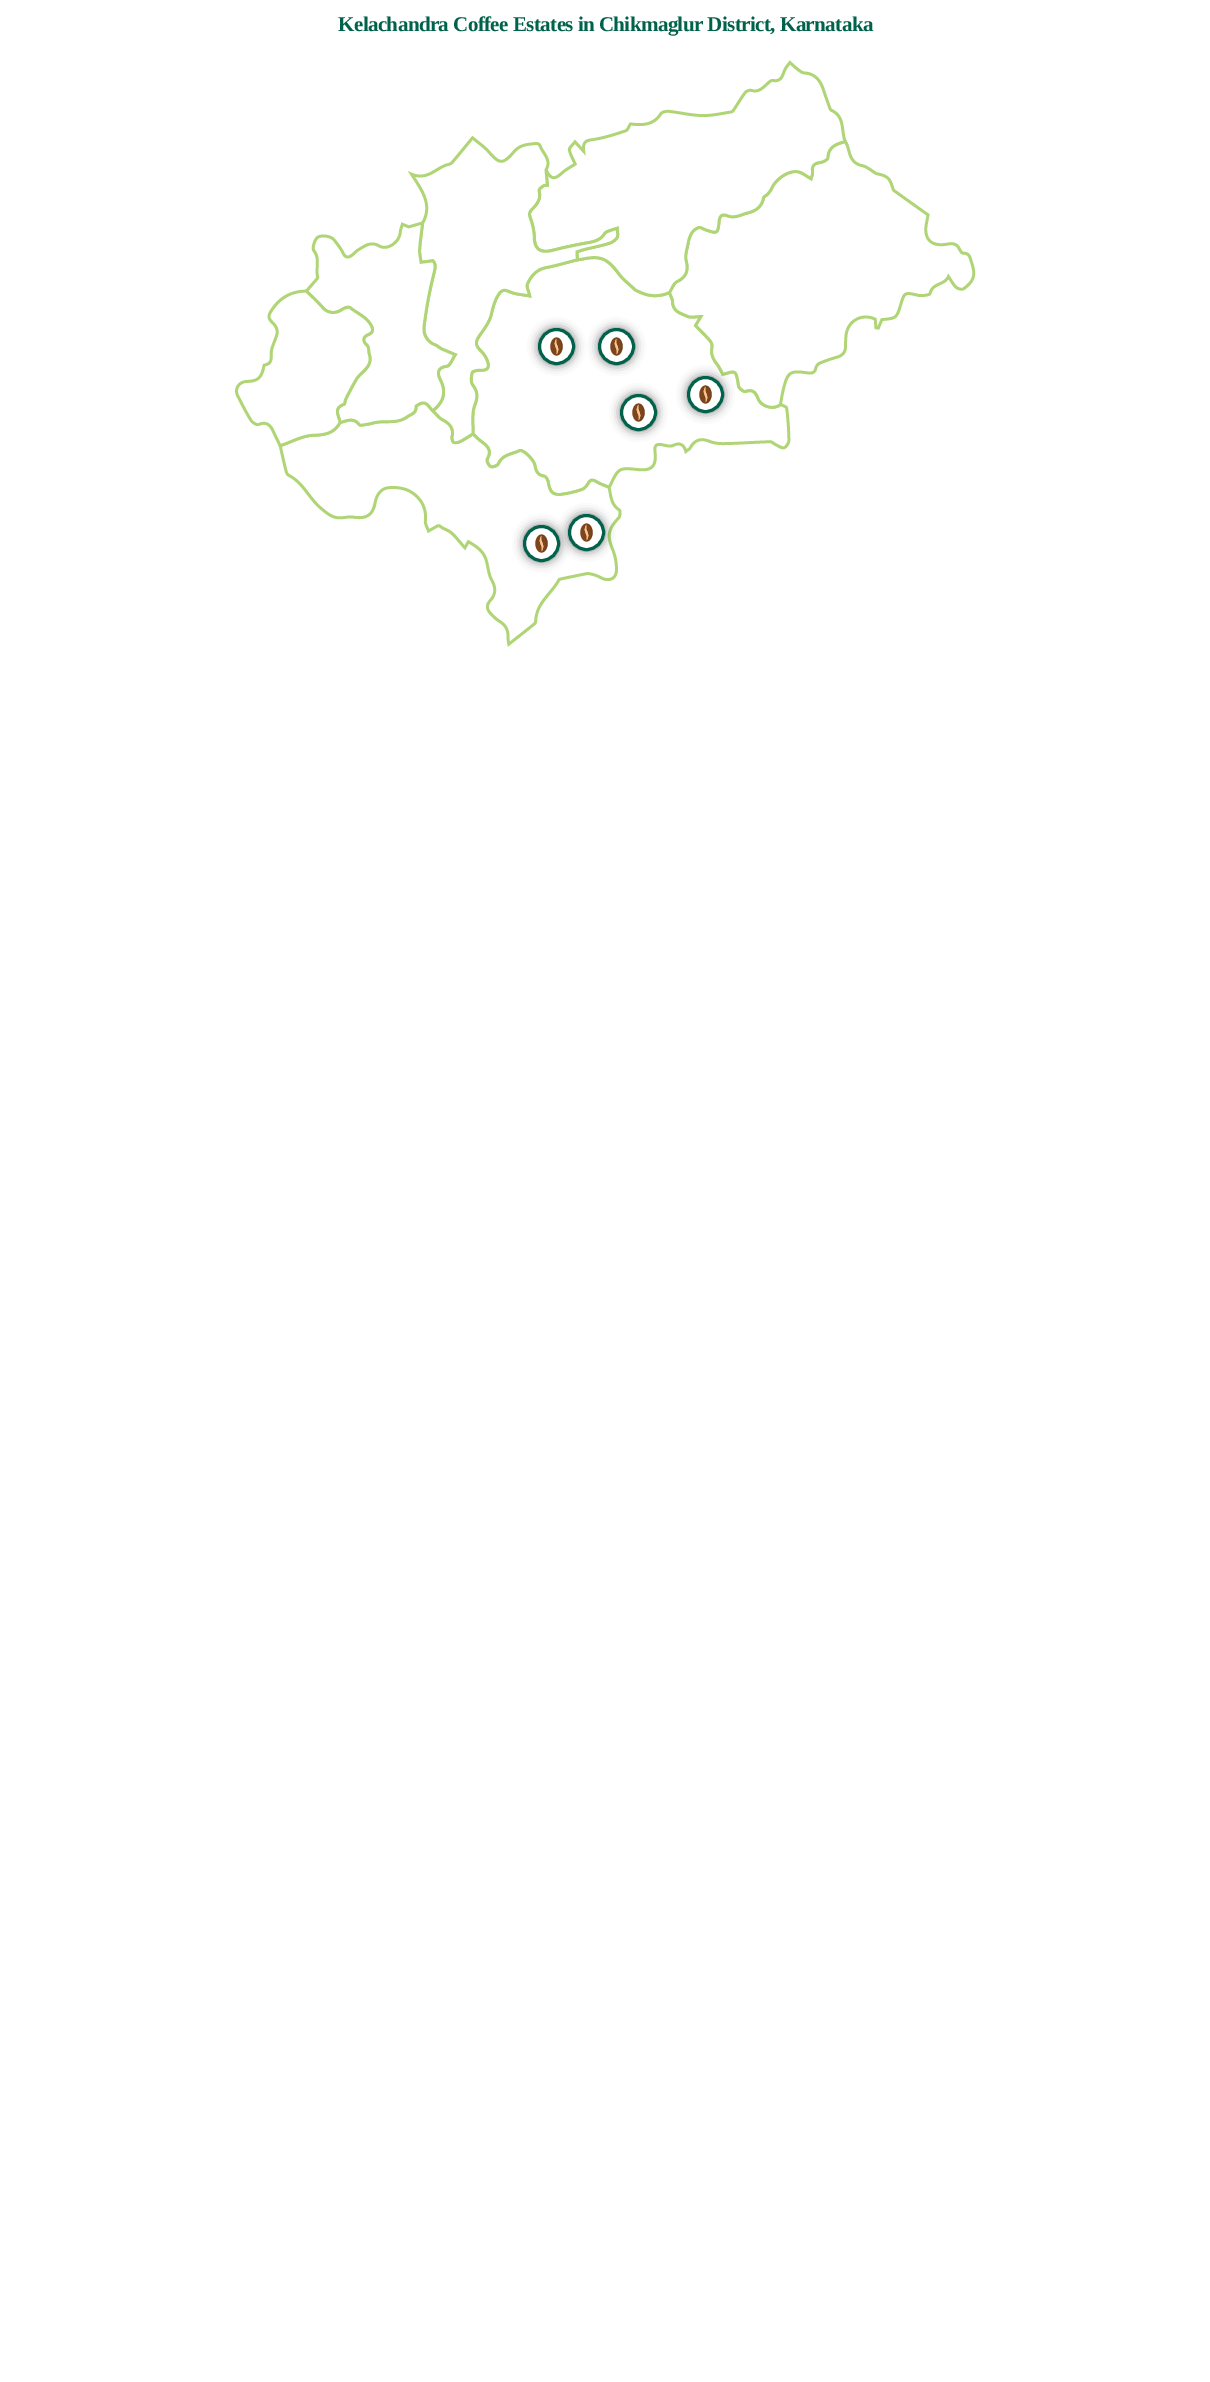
%!PS
<< /PageSize [1210 2382] /PageUsesTransparency true >> setpagedevice
/rgb { dup -16 bitshift 255 div exch dup -8 bitshift 255 and 255 div exch 255 and 255 div setrgbcolor } def
/font { [ exch dup neg 0 0 3 -1 roll 0 0 ] selectfont } def
/alpha { dup .setfillconstantalpha .setstrokeconstantalpha } def
/circle { newpath 0 360 arc closepath } def
/roundrect { 5 dict begin { /r /h /w /y /x } { exch def } forall
  x r add y moveto x w add y 2 copy h add r arct x w add y h add x 1 index r arct
  x y h add x y r arct x y 2 copy exch w add exch r arct closepath end } def
/shadow { 12 dict begin { /a /b /q /h /w /y /x } { exch def } forall gsave /was 0 def
  9 -2 -9 { dup b mul 4 div /e exch def 1 sub .425 mul 2.718 exch exp 1 add a .99 .min exch div /now exch def
    1 1 now sub 1 was sub div sub alpha /was now def
    w h .min e 2 mul add 0 gt { x e sub y e sub w e 2 mul add h e 2 mul add
      q e add b .6 mul add w h .min 2 div e add .min 0 .max roundrect fill } if } for grestore end } def
/picture { 5 dict begin { /h /w /y /x /name } { exch def } forall
  gsave x y translate w h scale
  w h 8 [w 0 0 h 0 0] name (r) file false 3 colorimage grestore end } def
0 .pushpdf14devicefilter
0 2382 translate 1 -1 scale
4 setmiterlimit
16#FFFFFF rgb
0 0 1210 2382 rectfill
/LiberationSerif-Bold 21 font
16#00624B rgb
338 31 moveto -0.57 0 (Kelachandra Coffee Estates in Chikmaglur District, Karnataka) ashow
(pic1.raw) 235 60 741 587 picture
16#000000 rgb
538 328 37 37 18.5 5 0.5 shadow
16#FFFFFF rgb
556.5 346.5 17 circle gsave fill grestore
16#00624B rgb
3 setlinewidth
stroke
(pic2.raw) 550 337 13 19 picture
16#000000 rgb
598 328 37 37 18.5 5 0.5 shadow
16#FFFFFF rgb
616.5 346.5 17 circle gsave fill grestore
16#00624B rgb
stroke
(pic2.raw) 610 337 13 19 picture
16#000000 rgb
620 394 37 37 18.5 5 0.5 shadow
16#FFFFFF rgb
638.5 412.5 17 circle gsave fill grestore
16#00624B rgb
stroke
(pic3.raw) 632 403 13 19 picture
16#000000 rgb
687 376 37 37 18.5 5 0.5 shadow
16#FFFFFF rgb
705.5 394.5 17 circle gsave fill grestore
16#00624B rgb
stroke
(pic3.raw) 699 385 13 19 picture
16#000000 rgb
568 514 37 37 18.5 5 0.5 shadow
16#FFFFFF rgb
586.5 532.5 17 circle gsave fill grestore
16#00624B rgb
stroke
16#000000 rgb
523 525 37 37 18.5 5 0.5 shadow
16#FFFFFF rgb
541.5 543.5 17 circle gsave fill grestore
16#00624B rgb
stroke
(pic2.raw) 535 534 13 19 picture
(pic2.raw) 580 523 13 19 picture
.poppdf14devicefilter showpage
